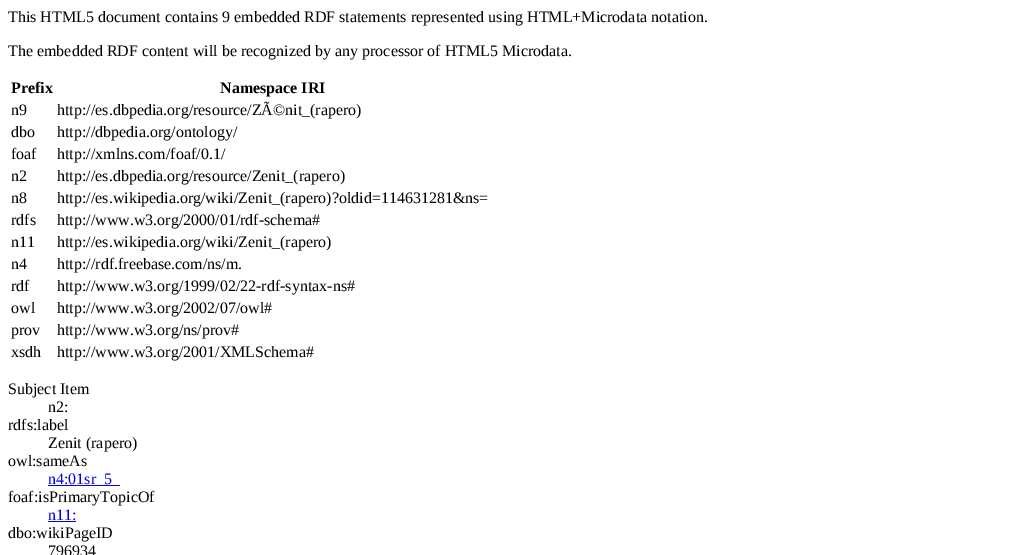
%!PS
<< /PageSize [1034 555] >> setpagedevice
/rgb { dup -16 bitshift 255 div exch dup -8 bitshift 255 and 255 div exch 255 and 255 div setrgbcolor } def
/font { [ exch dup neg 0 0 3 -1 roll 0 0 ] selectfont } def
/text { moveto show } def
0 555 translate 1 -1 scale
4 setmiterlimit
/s1 { /LiberationSerif-Regular 16 font 16#000000 rgb } def
/s2 { /LiberationSerif-Bold 16 font 16#000000 rgb } def
/s3 { /LiberationSerif-Regular 16 font 16#0000EE rgb } def
16#FFFFFF rgb
0 0 1034 555 rectfill
s1
(This HTML5 document contains 9 embedded RDF statements represented using HTML+Microdata notation.) 8 22 text
(The embedded RDF content will be recognized by any processor of HTML5 Microdata.) 8 56 text
s2
(Prefix) 11 93 text
(Namespace IRI) 220 93 text
s1
(n9) 11 115 text
(http://es.dbpedia.org/resource/ZÃ©nit_\(rapero\)) 57 115 text
(dbo) 11 137 text
(http://dbpedia.org/ontology/) 57 137 text
(foaf) 11 159 text
(http://xmlns.com/foaf/0.1/) 57 159 text
(n2) 11 181 text
(http://es.dbpedia.org/resource/Zenit_\(rapero\)) 57 181 text
(n8) 11 203 text
(http://es.wikipedia.org/wiki/Zenit_\(rapero\)?oldid=114631281&ns=) 57 203 text
(rdfs) 11 225 text
(http://www.w3.org/2000/01/rdf-schema#) 57 225 text
(n11) 11 247 text
(http://es.wikipedia.org/wiki/Zenit_\(rapero\)) 57 247 text
(n4) 11 269 text
(http://rdf.freebase.com/ns/m.) 57 269 text
(rdf) 11 291 text
(http://www.w3.org/1999/02/22-rdf-syntax-ns#) 57 291 text
(owl) 11 313 text
(http://www.w3.org/2002/07/owl#) 57 313 text
(prov) 11 335 text
(http://www.w3.org/ns/prov#) 57 335 text
(xsdh) 11 357 text
(http://www.w3.org/2001/XMLSchema#) 57 357 text
(Subject Item) 8 394 text
(n2:) 48 412 text
(rdfs:label) 8 430 text
(Zenit \(rapero\)) 48 448 text
(owl:sameAs) 8 466 text
16#0000EE rgb
48 485 72 1 rectfill
(n4:01sr_5) 48 484 text
s1
(foaf:isPrimaryTopicOf) 8 502 text
s3
(n11:) 48 520 text
48 521 28 1 rectfill
s1
(dbo:wikiPageID) 8 538 text
(796934) 48 556 text
showpage
